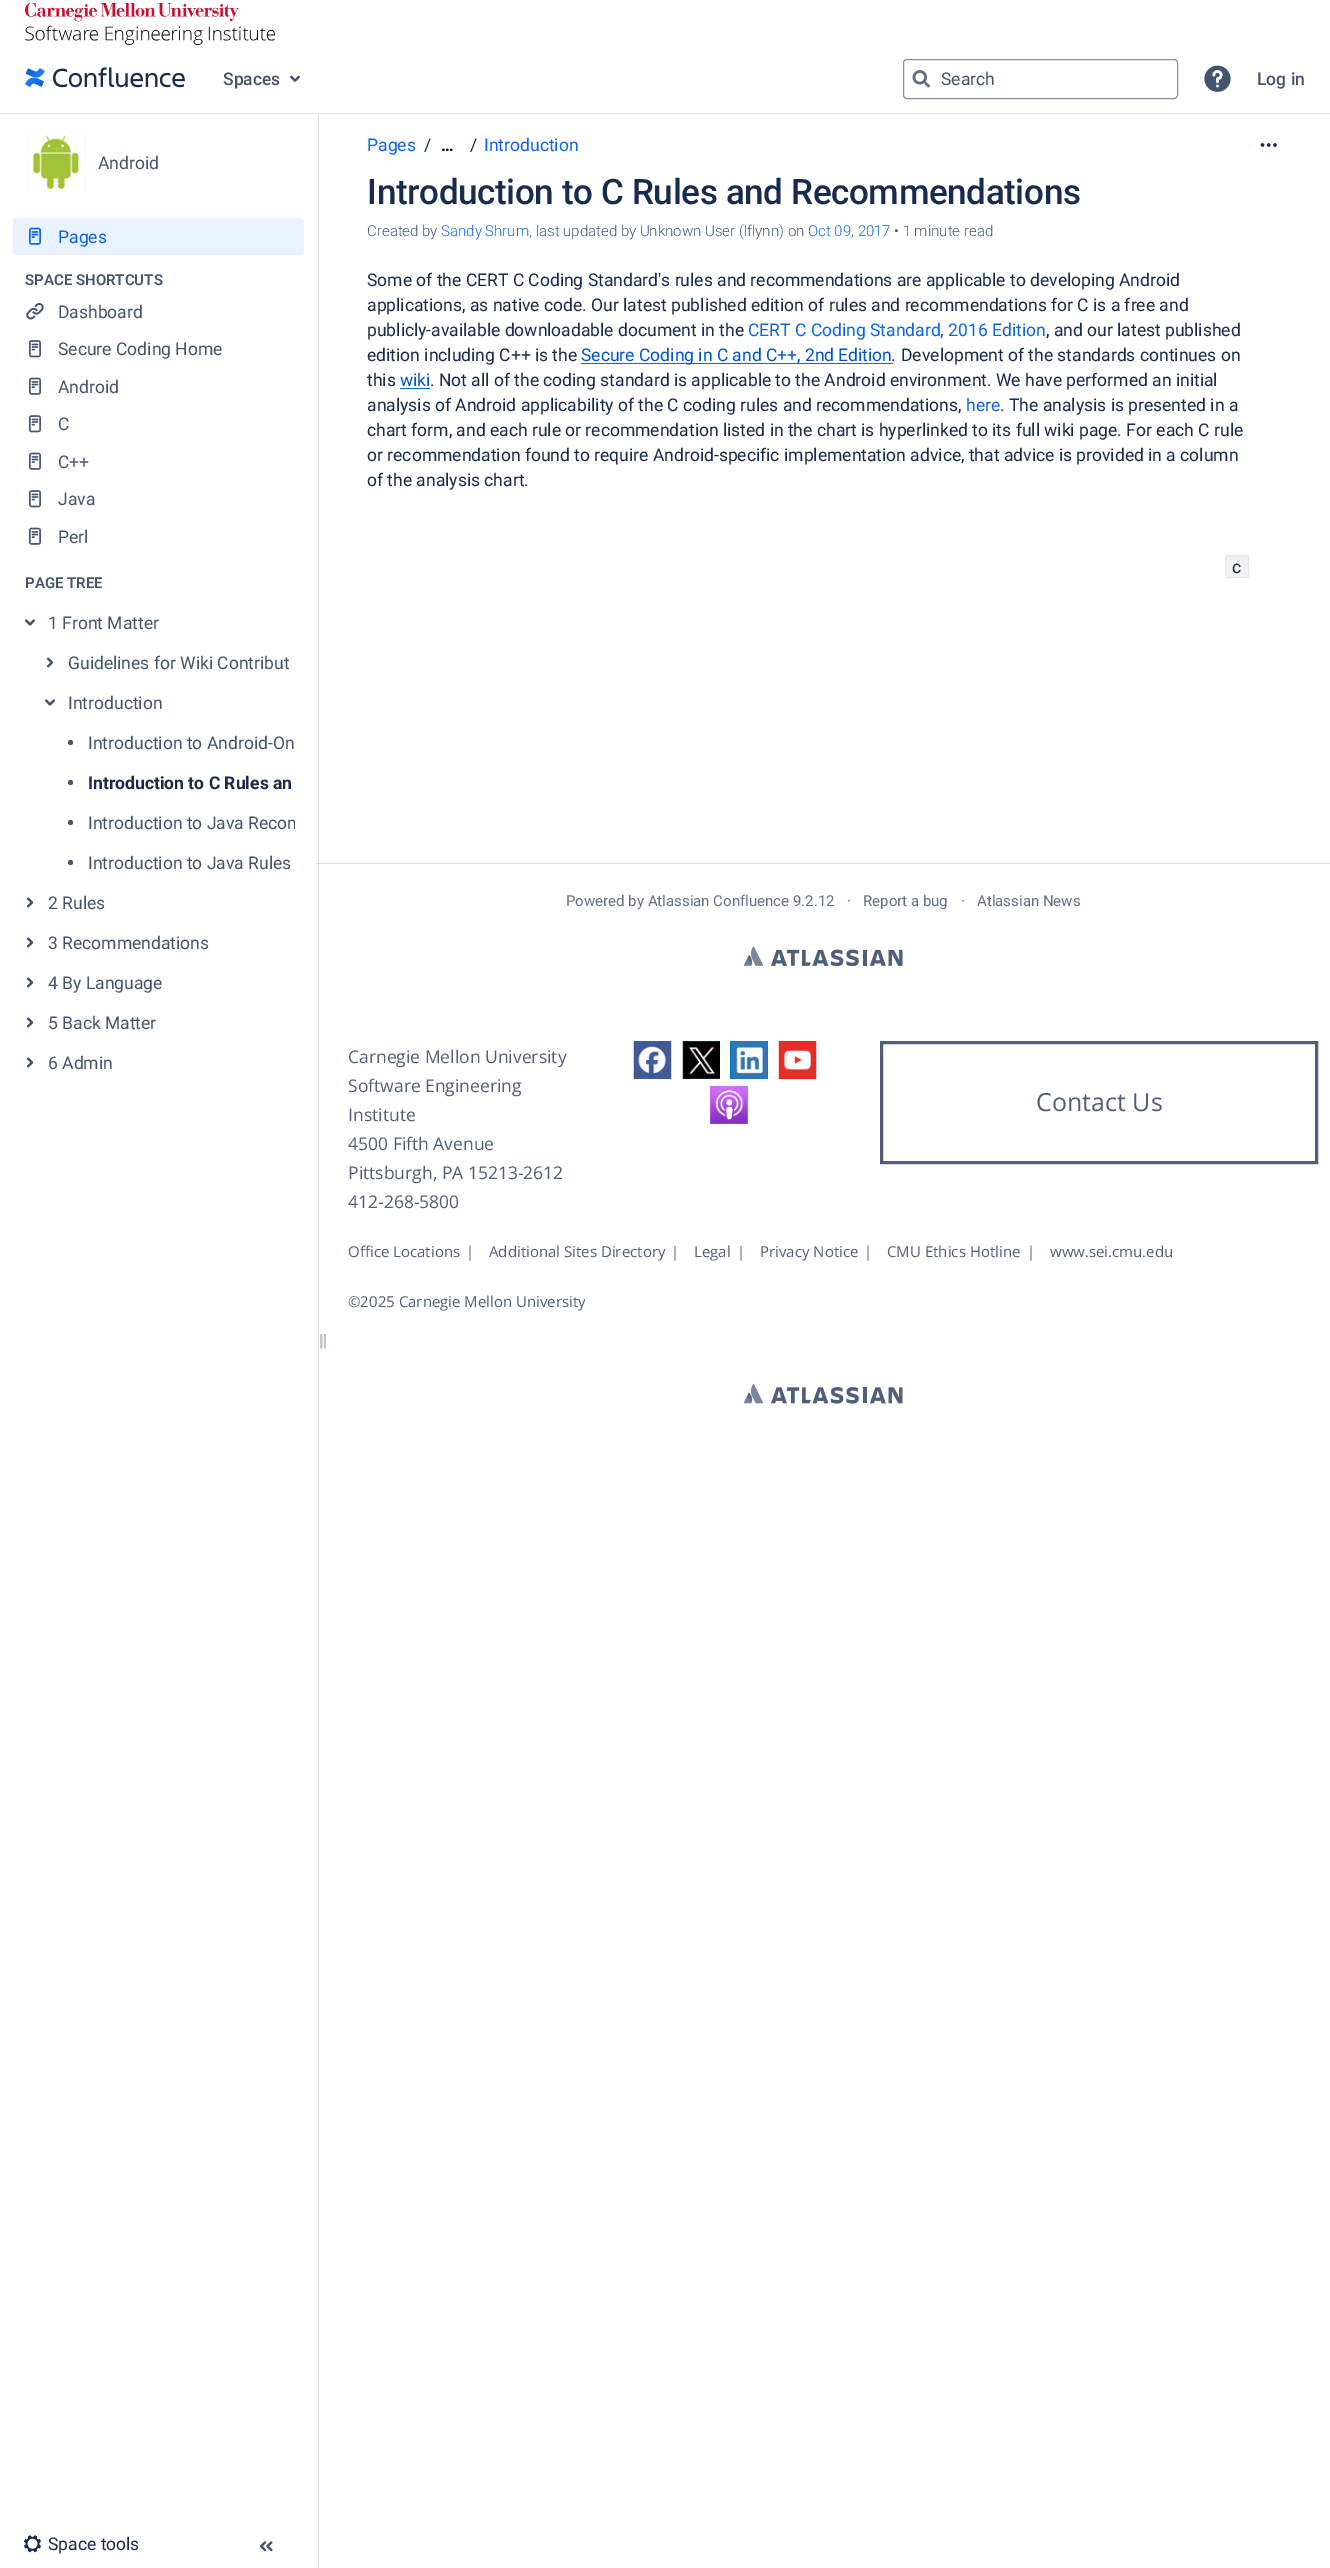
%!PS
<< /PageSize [1330 2568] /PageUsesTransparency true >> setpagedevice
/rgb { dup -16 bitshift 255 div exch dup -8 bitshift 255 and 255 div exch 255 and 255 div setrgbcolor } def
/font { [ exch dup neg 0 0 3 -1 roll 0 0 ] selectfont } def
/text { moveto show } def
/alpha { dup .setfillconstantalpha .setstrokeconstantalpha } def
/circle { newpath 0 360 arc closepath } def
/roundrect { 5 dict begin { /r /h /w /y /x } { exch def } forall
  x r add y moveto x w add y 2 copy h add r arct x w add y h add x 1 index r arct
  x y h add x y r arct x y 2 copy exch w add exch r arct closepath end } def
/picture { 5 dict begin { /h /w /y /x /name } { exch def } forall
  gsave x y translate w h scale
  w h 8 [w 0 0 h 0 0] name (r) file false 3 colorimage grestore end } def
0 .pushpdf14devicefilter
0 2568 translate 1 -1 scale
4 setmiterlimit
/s1 { /Roboto-Medium 17.5 font 16#44546F rgb } def
/s2 { /Roboto-Regular 17.5 font 16#44546F rgb } def
/s3 { /Roboto-Regular 17.5 font 16#0C66E4 rgb } def
/s4 { /Roboto-SemiBold 15 font 16#44546F rgb } def
/s5 { /Roboto-Bold 17.5 font 16#172B4D rgb } def
/s6 { /Roboto-Regular 17.5 font 16#172B4D rgb } def
/s7 { /Roboto-Bold 17 font 16#000000 rgb } def
/s8 { /Roboto-Light 15 font 16#44546F rgb } def
/s9 { /Roboto-Light 15 font 16#0C66E4 rgb } def
/s10 { /Roboto-Regular 17.5 font 16#0055CC rgb } def
/s11 { /Roboto-Italic 17.5 font 16#172B4D rgb } def
/s12 { /Roboto-Regular 15 font 16#626F86 rgb } def
/s13 { /OpenSans-Regular 17.5 font 16#505E79 rgb } def
/s14 { /OpenSans-Regular 25 font 16#505E79 rgb } def
/s15 { /OpenSans-Regular 15 font 16#505E79 rgb } def
/s16 { /OpenSans-Regular 15 font 16#626F86 rgb } def
16#FFFFFF rgb
0 0 1330 2568 rectfill
16#DDDFE5 rgb
318 114 1 2454 rectfill
(pic1.raw) 25 3 250 42 picture
16#DDE0E5 rgb
0 113 1330 1 rectfill
(pic2.raw) 25 67 160 21 picture
s1
(Spaces) 223 85 text
(pic3.raw) 290 75 10 7 picture
16#8590A2 rgb
903.5 59.5 274 39 3.5 roundrect stroke
(pic4.raw) 912 70 18 18 picture
s2
(Search) 941 85 text
(pic5.raw) 1204 65 27 27 picture
s1
(Log in) 1257 85 text
(pic6.raw) 27 133 59 59 picture
s2
(Android) 98 169 text
16#E9F2FF rgb
13 218 291 37 4 roundrect fill
(pic7.raw) 29 227 12 18 picture
s3
(Pages) 58 243 text
s4
(SPACE SHORTCUTS) 25 285 text
(pic8.raw) 26 303 18 17 picture
s2
(Dashboard) 58 318 text
(pic9.raw) 29 340 12 18 picture
(Secure Coding Home) 58 355 text
(pic10.raw) 29 377 12 18 picture
(Android) 58 393 text
(pic9.raw) 29 415 12 18 picture
(C) 58 430 text
(pic10.raw) 29 452 12 18 picture
(C++) 58 468 text
(pic9.raw) 29 490 12 18 picture
(Java) 58 505 text
(pic10.raw) 29 527 12 18 picture
(Perl) 58 543 text
s4
(PAGE TREE) 25 588 text
(pic11.raw) 25 619 10 7 picture
s2
(1 Front Matter) 48 629 text
(pic12.raw) 46 657 8 11 picture
(Guidelines for Wiki Contribut) 68 669 text
(pic11.raw) 45 699 10 7 picture
(Introduction) 68 709 text
70.5 742.5 2.5 circle fill
(Introduction to Android-On) 88 749 text
70.5 782.5 2.5 circle fill
s5
(Introduction to C Rules an) 88 789 text
16#44546F rgb
70.5 822.5 2.5 circle fill
gsave
85 808 210 30 rectclip
s2
(Introduction to Java Recom) 88 829 text
grestore
70.5 862.5 2.5 circle fill
s2
(Introduction to Java Rules) 88 869 text
(pic12.raw) 26 897 8 11 picture
(2 Rules) 48 909 text
(pic12.raw) 26 937 8 11 picture
(3 Recommendations) 48 949 text
(pic12.raw) 26 977 8 11 picture
(4 By Language) 48 989 text
(pic12.raw) 26 1017 8 11 picture
(5 Back Matter) 48 1029 text
(pic12.raw) 26 1057 8 11 picture
(6 Admin) 48 1069 text
(pic13.raw) 320 1334 6 15 picture
(pic14.raw) 24 2535 17 18 picture
s6
(Space tools) 48 2550 text
(pic15.raw) 260 2541 13 11 picture
16#DDE0E5 rgb
316 863 1014 1 rectfill
16#BFC5CE rgb
318 863 1 1 rectfill
s3
(Pages) 367 151 text
s6
(/) 424 151 text
s7
(…) 441 151 text
s6
(/) 470 151 text
s3
(Introduction) 484 151 text
/Roboto-Medium 35 font
16#172B4D rgb
367 204 moveto -0.35 0 (Introduction to C Rules and Recommendations) ashow
(pic16.raw) 1260 143 17 4 picture
s8
(Created by) 367 236 text
s9
(Sandy Shrum) 441 236 text
s8
(, last updated by Unknown User \(lflynn\) on) 529 236 text
s9
(Oct 09, 2017) 808 236 text
s8
(• 1 minute read) 894 236 text
s6
(Some of the CERT C Coding Standard's rules and recommendations are applicable to developing Android) 367 286 text
(applications, as native code. Our latest published edition of rules and recommendations for C is a free and) 367 311 text
(publicly-available downloadable document in the) 367 336 text
s3
(CERT C Coding Standard, 2016 Edition) 748 336 text
s6
(, and our latest published) 1046 336 text
(edition including C++ is the) 367 361 text
16#0C66E4 rgb
581 363 312 1 rectfill
s10
(Secure Coding in C and C++, 2nd Edition) 581 361 text
s11
(.) 892 361 text
s6
(Development of the standards continues on) 901 361 text
(this) 367 386 text
s10
(wiki) 400 386 text
16#0C66E4 rgb
400 388 30 1 rectfill
s6
(. Not all of the coding standard is applicable to the Android environment. We have performed an initial) 430 386 text
(analysis of Android applicability of the C coding rules and recommendations,) 367 411 text
s3
(here) 966 411 text
s6
(. The analysis is presented in a) 1000 411 text
(chart form, and each rule or recommendation listed in the chart is hyperlinked to its full wiki page. For each C rule) 367 436 text
(or recommendation found to require Android-specific implementation advice, that advice is provided in a column) 367 461 text
(of the analysis chart.) 367 486 text
16#F0F2F4 rgb
1225 555 24 23 4 roundrect fill
0.06 alpha
16#091E42 rgb
1225.5 555.5 23 22 rectstroke
1 alpha
s6
(c) 1232 573 text
(pic17.raw) 744 1383 159 21 picture
s12
(Powered by Atlassian Confluence 9.2.12) 566 906 text
(·) 847 906 text
(Report a bug) 863 906 text
(·) 961 906 text
(Atlassian News) 977 906 text
(pic18.raw) 744 946 159 21 picture
s13
(Carnegie Mellon University) 348 1063 text
(Software Engineering) 348 1092 text
(Institute) 348 1121 text
(4500 Fifth Avenue) 348 1150 text
(Pittsburgh, PA 15213-2612) 348 1179 text
(412-268-5800) 348 1208 text
(pic19.raw) 633 1041 39 38 picture
16#1DA1F2 rgb
683 1041 37 38 rectfill
(pic20.raw) 682 1041 38 38 picture
16#007BB5 rgb
730 1041 38 38 rectfill
(pic21.raw) 731 1041 37 38 picture
(pic22.raw) 778 1041 39 38 picture
16#D56DFB rgb
710 1086 38 38 rectfill
(pic23.raw) 710 1086 38 38 picture
16#505E79 rgb
3 setlinewidth
881.5 1042.5 435 120 rectstroke
s14
(Contact Us) 1036 1111 text
s15
(Office Locations) 348 1257 text
s16
(|) 466 1257 text
s15
(Additional Sites Directory) 489 1257 text
s16
(|) 671 1257 text
s15
(Legal) 694 1257 text
s16
(|) 737 1257 text
s15
(Privacy Notice) 760 1257 text
s16
(|) 864 1257 text
s15
(CMU Ethics Hotline) 887 1257 text
s16
(|) 1027 1257 text
s15
(www.sei.cmu.edu) 1050 1257 text
(©2025 Carnegie Mellon University) 348 1307 text
.poppdf14devicefilter showpage
